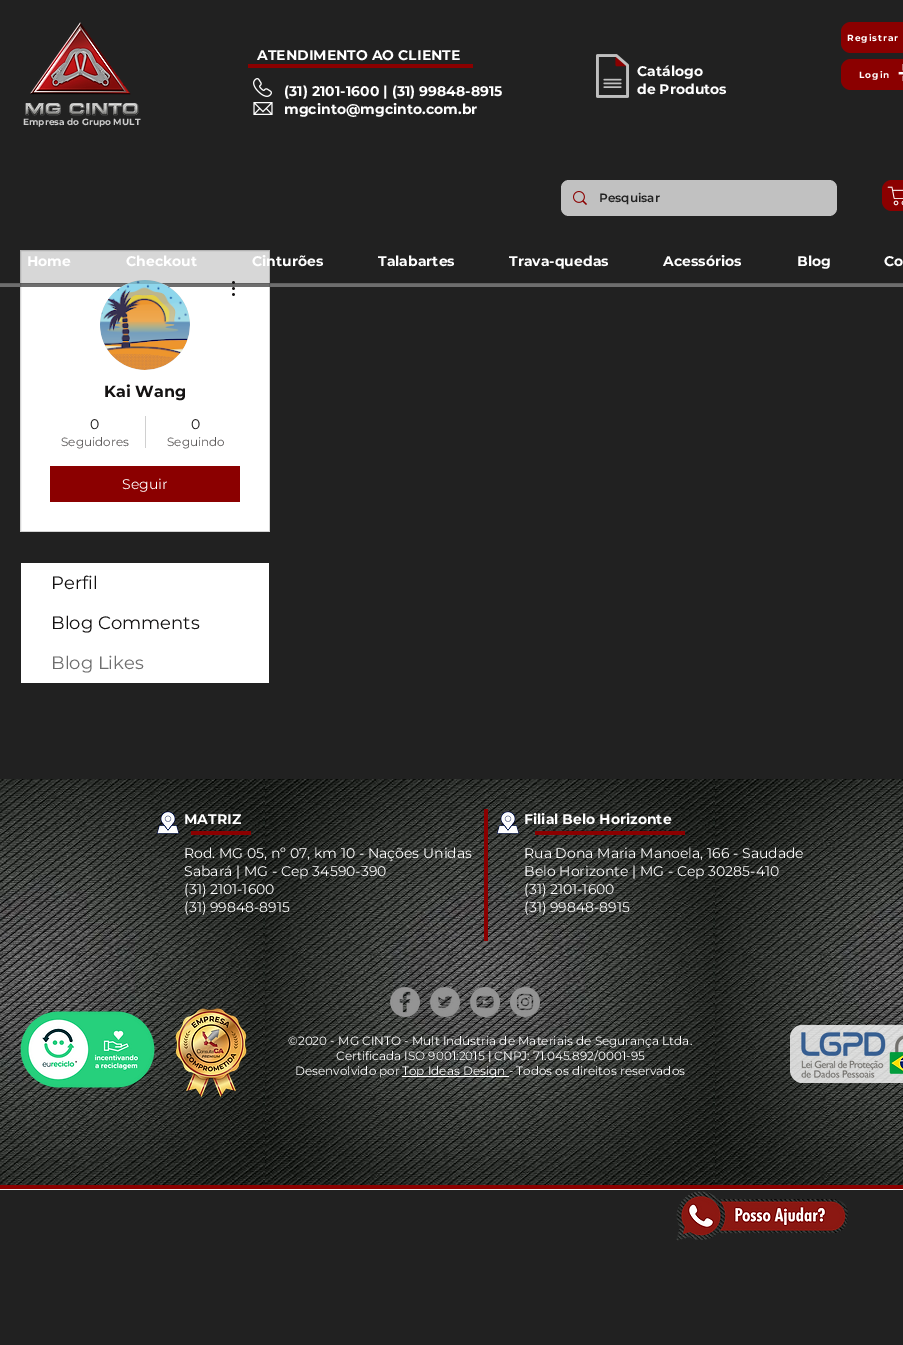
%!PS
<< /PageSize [903 1345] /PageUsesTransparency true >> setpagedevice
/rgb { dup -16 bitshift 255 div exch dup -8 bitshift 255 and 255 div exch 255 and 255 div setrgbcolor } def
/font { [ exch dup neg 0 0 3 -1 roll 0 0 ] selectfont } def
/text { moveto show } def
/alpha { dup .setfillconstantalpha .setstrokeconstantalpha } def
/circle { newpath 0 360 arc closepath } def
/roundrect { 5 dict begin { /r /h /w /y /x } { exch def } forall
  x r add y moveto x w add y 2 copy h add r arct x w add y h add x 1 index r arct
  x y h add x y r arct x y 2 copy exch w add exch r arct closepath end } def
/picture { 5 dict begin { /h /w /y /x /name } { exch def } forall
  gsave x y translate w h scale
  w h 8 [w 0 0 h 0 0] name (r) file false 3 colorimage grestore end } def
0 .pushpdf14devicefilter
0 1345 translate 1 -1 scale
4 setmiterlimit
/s1 { /Montserrat-Bold 14 font 16#FFFFFF rgb } def
/s2 { /Montserrat-Bold 9 font 16#CCCCCC rgb } def
/s3 { /Montserrat-SemiBold 12 font 16#212121 rgb } def
/s4 { /Montserrat-Bold 16 font 16#141212 rgb } def
/s5 { /Montserrat-Regular 14 font 16#141212 rgb } def
/s6 { /Montserrat-Regular 12 font 16#5B5959 rgb } def
/s7 { /Montserrat-Regular 14 font 16#FFFFFF rgb } def
/s8 { /Montserrat-Regular 18 font 16#141212 rgb } def
/s9 { /Montserrat-Regular 18 font 16#6E6E6E rgb } def
/s10 { /Montserrat-Regular 12 font 16#FFFFFF rgb } def
16#212121 rgb
0 0 903 1345 rectfill
16#8B0000 rgb
841 22 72 31 10 roundrect fill
/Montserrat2-Bold 9 font
16#FFFFFF rgb
847 41 moveto 1 0 (Registrar) ashow
s1
(ATENDIMENTO AO CLIENTE) 257 60 text
16#8B0000 rgb
248 64 225 4 rectfill
(pic1.raw) 253 78 19 19 picture
s1
(\(31\) 2101-1600 | \(31\) 99848-8915) 284 96 text
(mgcinto@mgcinto.com.br) 284 114 text
(pic2.raw) 253 102 20 13 picture
(pic3.raw) 596 54 33 44 picture
(Catálogo) 637 76 text
(de Produtos) 637 94 text
16#8B0000 rgb
841 59 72 31 10 roundrect fill
/Montserrat2-Bold 9 font
16#FFFFFF rgb
859 78 moveto 1 0 (Login) ashow
(pic4.raw) 898 64 5 18 picture
(pic5.raw) 30 22 101 73 picture
(pic6.raw) 25 103 114 13 picture
s2
(Empresa do Grupo MULT) 23 125 text
16#C1C1C1 rgb
561 180 276 36 8 roundrect fill
(pic7.raw) 573 191 14 14 picture
s3
(Pesquisar) 599 202 text
16#8B0000 rgb
882 180 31 31 10 roundrect fill
(pic8.raw) 887 186 16 20 picture
16#FFFFFF rgb
20 250 250 282 rectfill
16#6E6E6E rgb
0 283 903 4 rectfill
0.2 alpha
16#212121 rgb
20.5 250.5 249 281 rectstroke
1 alpha
16#D8D8D8 rgb
145 325 45 circle fill
(pic9.raw) 100 280 90 90 picture
(pic10.raw) 232 281 3 15 picture
0.18 alpha
16#232323 rgb
0 250 903 34 rectfill
1 alpha
s1
(Home) 27 266 text
(Checkout) 126 266 text
(Cinturões) 252 266 text
(Talabartes) 378 266 text
(Trava-quedas) 509 266 text
(Acessórios) 663 266 text
(Blog) 797 266 text
(Co) 884 266 text
s4
(Kai Wang) 104 397 text
s5
(0) 90 429 text
s6
(Seguidores) 61 446 text
16#D0D0D0 rgb
145 416 1 32 rectfill
s5
(0) 191 429 text
s6
(Seguindo) 167 446 text
16#8B0000 rgb
50 466 190 36 rectfill
s7
(Seguir) 122 489 text
21 563 248 120 rectfill
s8
(Perfil) 51 589 text
(Blog Comments) 51 629 text
s9
(Blog Likes) 51 669 text
(pic11.raw) 0 779 903 406 picture
(pic12.raw) 156 811 24 23 picture
s1
(MATRIZ) 184 824 text
s7
(Rod. MG 05, nº 07, km 10 - Nações Unidas) 184 858 text
(Sabará | MG - Cep 34590-390) 184 876 text
(\(31\) 2101-1600) 184 894 text
(\(31\) 99848-8915) 184 912 text
16#8B0000 rgb
484 809 4 132 rectfill
(pic13.raw) 496 811 24 23 picture
s1
(Filial Belo Horizonte) 524 824 text
s7
(Rua Dona Maria Manoela, 166 - Saudade) 524 858 text
(Belo Horizonte | MG - Cep 30285-410) 524 876 text
(\(31\) 2101-1600) 524 894 text
(\(31\) 99848-8915) 524 912 text
16#8B0000 rgb
191 831 60 4 rectfill
535 831 150 4 rectfill
(pic14.raw) 390 987 30 30 picture
(pic15.raw) 430 987 30 30 picture
(pic16.raw) 470 987 30 30 picture
(pic17.raw) 510 987 30 30 picture
(pic18.raw) 20 1011 135 77 picture
(pic19.raw) 175 1008 72 89 picture
s10
(©2020 - MG CINTO - Mult Indústria de Materiais de Segurança Ltda.) 288 1045 text
(Certificada ISO 9001:2015 | CNPJ: 71.045.892/0001-95) 336 1060 text
(Desenvolvido por) 295 1075 text
402 1076 107 1 rectfill
(Top Ideas Design - Todos os direitos reservados) 402 1075 text
0.8 alpha
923 1083 moveto 802 1083 lineto 796 1083 790 1077 790 1070 curveto 790 1038 lineto 790 1031 795 1025 802 1025 curveto 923 1025 lineto 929 1025 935 1031 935 1038 curveto 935 1070 lineto 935 1077 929 1083 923 1083 curveto closepath fill
1 alpha
(pic20.raw) 801 1032 102 46 picture
16#8B0000 rgb
0 1185 903 4 rectfill
16#FFFFFF rgb
0 1189 903 1 rectfill
(pic21.raw) 676 1191 172 50 picture
.poppdf14devicefilter showpage
